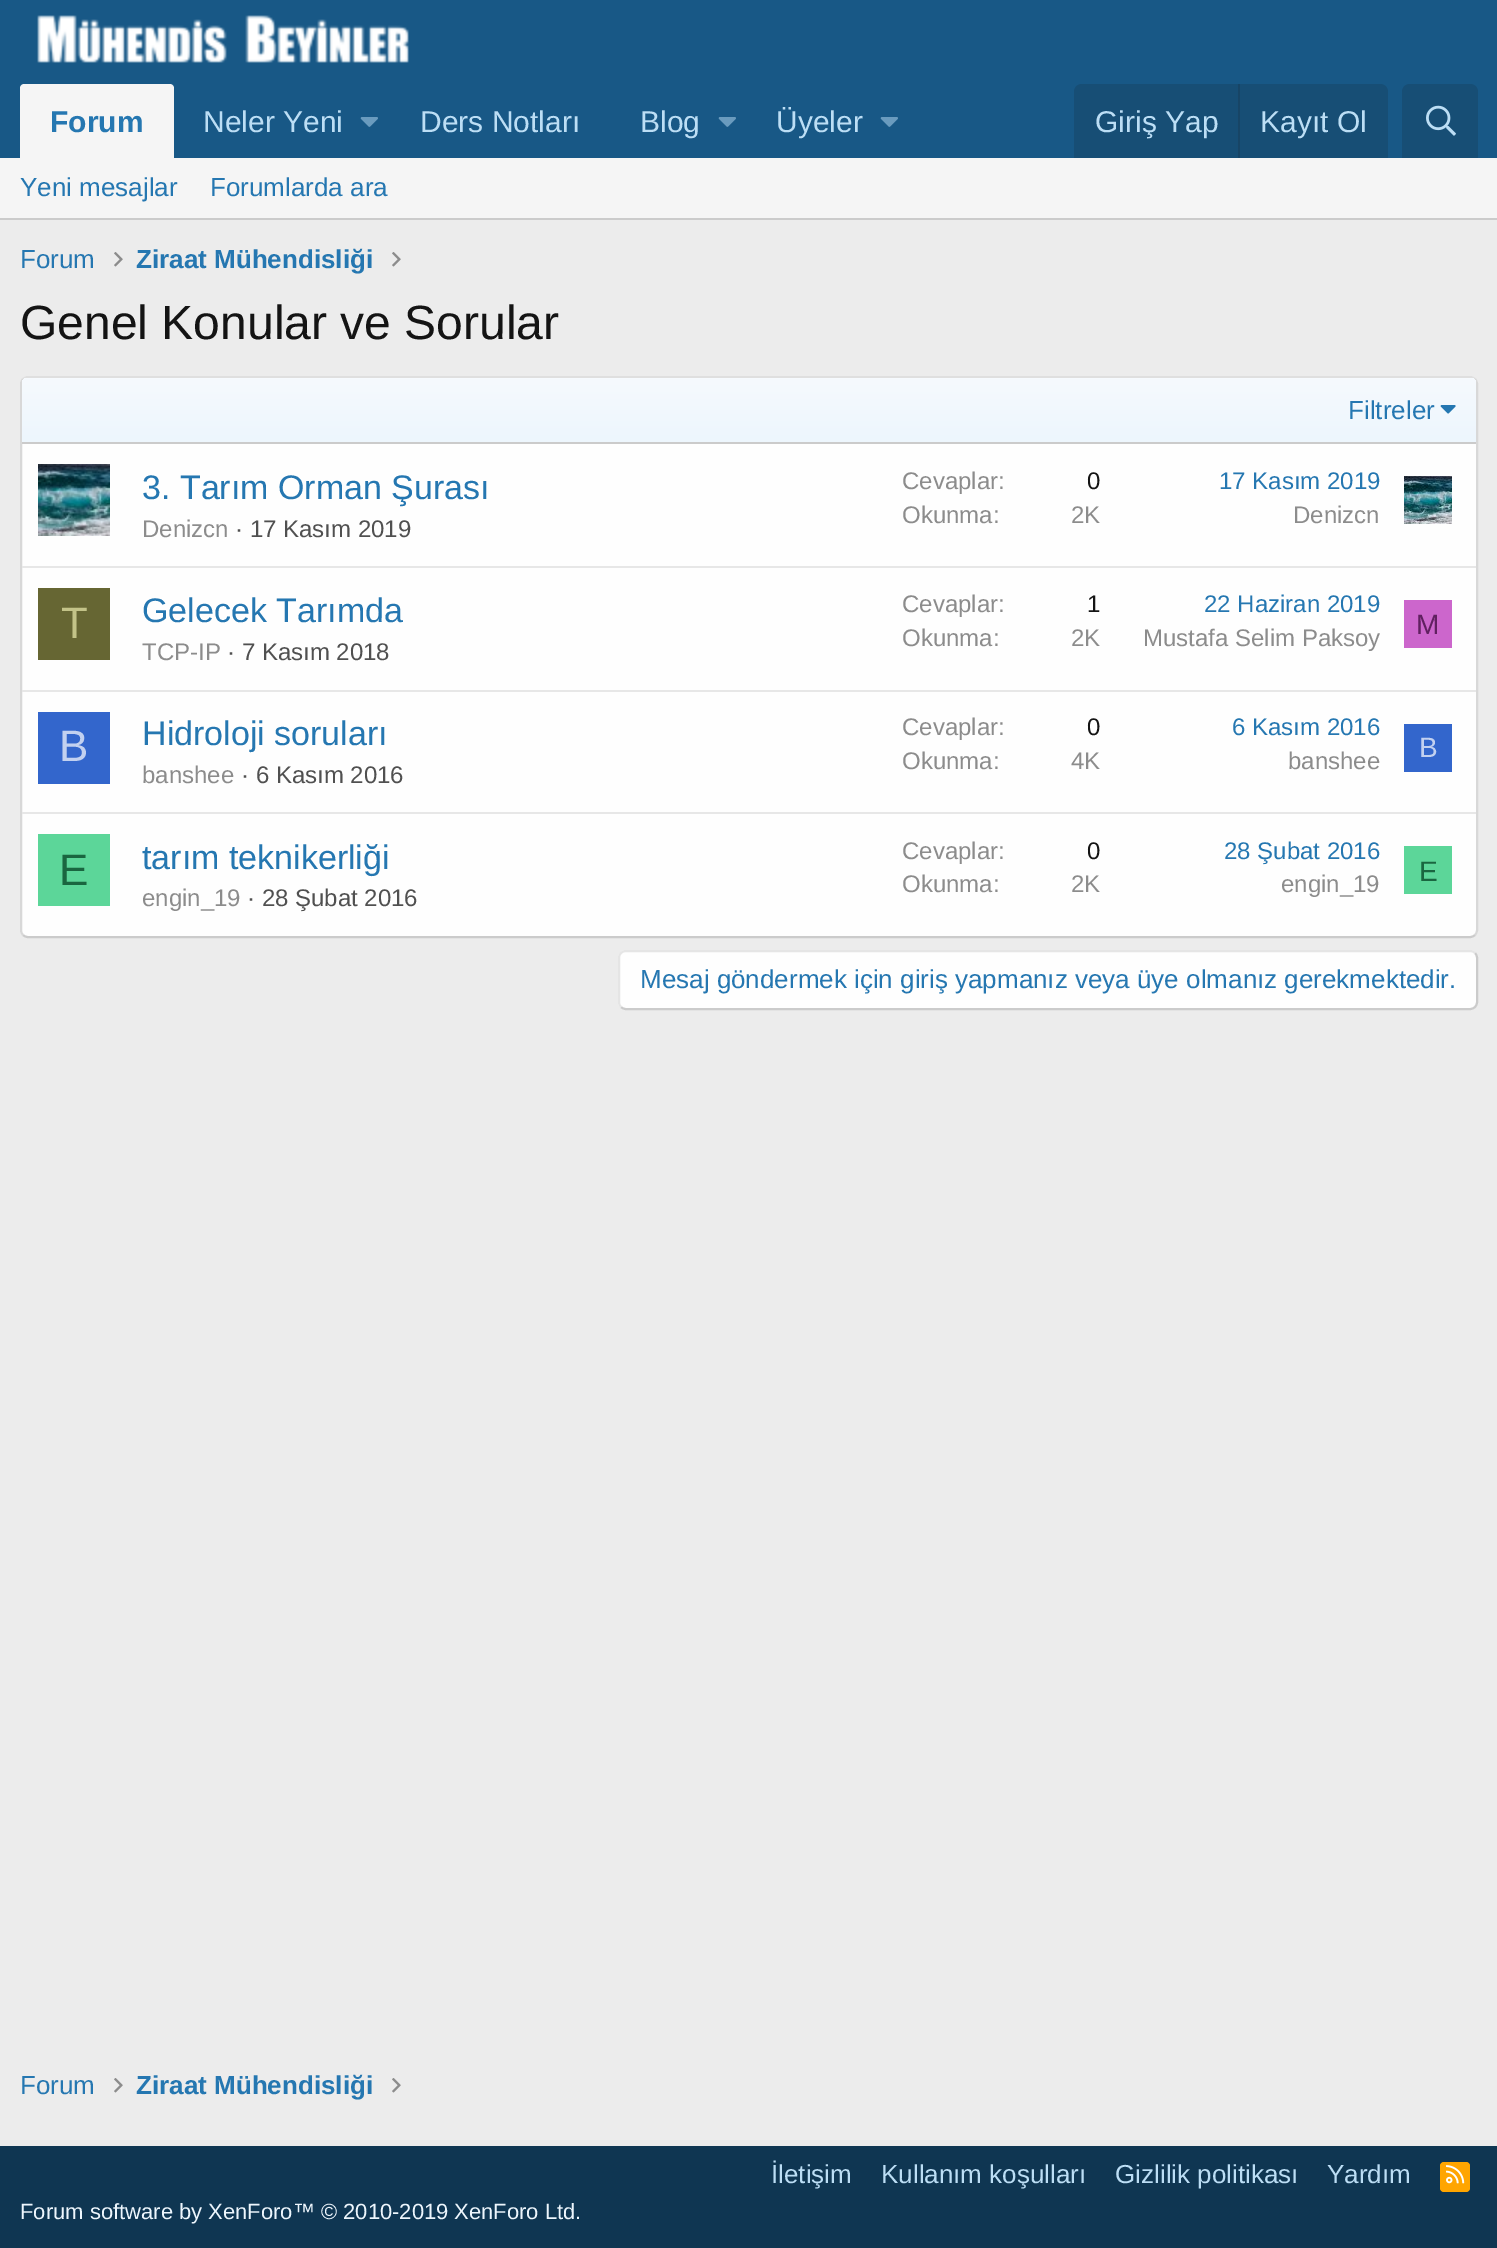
%!PS
<< /PageSize [1497 2248] >> setpagedevice
/rgb { dup -16 bitshift 255 div exch dup -8 bitshift 255 and 255 div exch 255 and 255 div setrgbcolor } def
/font { [ exch dup neg 0 0 3 -1 roll 0 0 ] selectfont } def
/text { moveto show } def
/roundrect { 5 dict begin { /r /h /w /y /x } { exch def } forall
  x r add y moveto x w add y 2 copy h add r arct x w add y h add x 1 index r arct
  x y h add x y r arct x y 2 copy exch w add exch r arct closepath end } def
/picture { 5 dict begin { /h /w /y /x /name } { exch def } forall
  gsave x y translate w h scale
  w h 8 [w 0 0 h 0 0] name (r) file false 3 colorimage grestore end } def
0 2248 translate 1 -1 scale
4 setmiterlimit
/s1 { /LiberationSans-Bold 30 font 16#2577B1 rgb } def
/s2 { /LiberationSans-Regular 30 font 16#BCDEF5 rgb } def
/s3 { /LiberationSans-Regular 26 font 16#2577B1 rgb } def
/s4 { /LiberationSans-Bold 26 font 16#2577B1 rgb } def
/s5 { /LiberationSans-Regular 48 font 16#141414 rgb } def
/s6 { /LiberationSans-Regular 34 font 16#2577B1 rgb } def
/s7 { /LiberationSans-Regular 24 font 16#8C8C8C rgb } def
/s8 { /LiberationSans-Regular 24 font 16#505050 rgb } def
/s9 { /LiberationSans-Regular 24 font 16#141414 rgb } def
/s10 { /LiberationSans-Regular 24 font 16#2577B1 rgb } def
/s11 { /LiberationSans-Regular 44 font 16#C3C388 rgb } def
/s12 { /LiberationSans-Regular 28 font 16#602060 rgb } def
/s13 { /LiberationSans-Regular 44 font 16#C2D1F0 rgb } def
/s14 { /LiberationSans-Regular 28 font 16#C2D1F0 rgb } def
/s15 { /LiberationSans-Regular 44 font 16#1A6640 rgb } def
/s16 { /LiberationSans-Regular 28 font 16#1A6640 rgb } def
/s17 { /LiberationSans-Regular 26 font 16#BCDEF5 rgb } def
/s18 { /LiberationSans-Regular 22 font 16#EDF6FD rgb } def
16#ECECEC rgb
0 0 1497 2248 rectfill
16#185886 rgb
0 0 1497 158 rectfill
(pic1.raw) 37 15 372 48 picture
16#F5F5F5 rgb
24 84 moveto 170 84 lineto 172 84 174 86 174 88 curveto 174 158 lineto 20 158 lineto 20 88 lineto 20 86 22 84 24 84 curveto closepath fill
s1
(Forum) 50 132 text
s2
(Neler Yeni) 203 132 text
(pic2.raw) 360 117 18 10 picture
(Ders Notları) 420 132 text
(Blog) 640 132 text
(pic2.raw) 718 117 18 10 picture
(Üyeler) 776 132 text
(pic2.raw) 880 117 18 10 picture
16#174E75 rgb
1082 84 moveto 1380 84 lineto 1384.5 84 1388 87.5 1388 92 curveto 1388 158 lineto 1074 158 lineto 1074 92 lineto 1074 87.5 1077.5 84 1082 84 curveto closepath fill
s2
(Giriş Yap) 1095 132 text
16#174566 rgb
1238 84 2 74 rectfill
s2
(Kayıt Ol) 1260 132 text
16#174E75 rgb
1410 84 moveto 1470 84 lineto 1474.5 84 1478 87.5 1478 92 curveto 1478 158 lineto 1402 158 lineto 1402 92 lineto 1402 87.5 1405.5 84 1410 84 curveto closepath fill
(pic3.raw) 1426 105 30 31 picture
16#F5F5F5 rgb
0 158 1497 60 rectfill
16#CBCBCB rgb
0 218 1497 2 rectfill
s3
(Yeni mesajlar) 20 196 text
(Forumlarda ara) 210 196 text
(Forum) 20 268 text
(pic4.raw) 114 252 9 15 picture
s4
(Ziraat Mühendisliği) 136 268 text
(pic4.raw) 392 252 9 15 picture
s5
(Genel Konular ve Sorular) 20 339 text
16#FEFEFE rgb
20 376 1458 562 8 roundrect fill
16#DFDFDF rgb
2 setlinewidth
23 379 moveto 24.5 377.5 26 377 28 377 curveto 1470 377 lineto 1472 377 1473.5 377.5 1475 379 curveto stroke
16#D8D8D8 rgb
1475 379 moveto 1476.5 380.5 1477 382 1477 384 curveto 1477 930 lineto 1477 932 1476.5 933.5 1475 935 curveto stroke
16#CBCBCB rgb
1475 935 moveto 1473.5 936.5 1472 937 1470 937 curveto 28 937 lineto 26 937 24.5 936.5 23 935 curveto stroke
16#D8D8D8 rgb
23 935 moveto 21.5 933.5 21 932 21 930 curveto 21 384 lineto 21 382 21.5 380.5 23 379 curveto stroke
gsave 28 378 moveto 1470 378 lineto 1473.5 378 1476 380.5 1476 384 curveto 1476 442 lineto 22 442 lineto 22 384 lineto 22 380.5 24.5 378 28 378 curveto closepath clip newpath
<< /ShadingType 2 /ColorSpace /DeviceRGB /Coords [749 442 749 378] /Extend [true true] /Function << /FunctionType 2 /Domain [0 1] /C0 [0.929 0.965 0.992] /C1 [0.965 0.98 0.996] /N 1 >> >> shfill grestore
16#CBCBCB rgb
22 442 1454 2 rectfill
s3
(Filtreler) 1348 419 text
(pic5.raw) 1440 405 16 9 picture
(pic6.raw) 38 464 72 72 picture
s6
(3. Tarım Orman Şurası) 142 499 text
s7
(Denizcn) 142 537 text
s8
(· 17 Kasım 2019) 235 537 text
s7
(Cevaplar:) 902 489 text
s9
(0) 1087 489 text
s7
(Okunma:) 902 523 text
(2K) 1071 523 text
s10
(17 Kasım 2019) 1219 489 text
s7
(Denizcn) 1293 523 text
(pic7.raw) 1404 476 48 48 picture
16#E7E7E7 rgb
22 566 1454 2 rectfill
16#666633 rgb
38 588 72 72 rectfill
s11
(T) 61 638 text
s6
(Gelecek Tarımda) 142 622 text
s7
(TCP-IP) 142 660 text
s8
(· 7 Kasım 2018) 227 660 text
s7
(Cevaplar:) 902 612 text
s9
(1) 1087 612 text
s7
(Okunma:) 902 646 text
(2K) 1071 646 text
s10
(22 Haziran 2019) 1204 612 text
s7
(Mustafa Selim Paksoy) 1143 646 text
16#CC66CC rgb
1404 600 48 48 rectfill
s12
(M) 1416 634 text
16#E7E7E7 rgb
22 690 1454 2 rectfill
16#3366CC rgb
38 712 72 72 rectfill
s13
(B) 59 761 text
s6
(Hidroloji soruları) 142 745 text
s7
(banshee) 142 783 text
s8
(· 6 Kasım 2016) 241 783 text
s7
(Cevaplar:) 902 735 text
s9
(0) 1087 735 text
s7
(Okunma:) 902 769 text
(4K) 1071 769 text
s10
(6 Kasım 2016) 1232 735 text
s7
(banshee) 1288 769 text
16#3366CC rgb
1404 724 48 48 rectfill
s14
(B) 1419 757 text
16#E7E7E7 rgb
22 812 1454 2 rectfill
16#5CD699 rgb
38 834 72 72 rectfill
s15
(E) 59 885 text
s6
(tarım teknikerliği) 142 869 text
s7
(engin_19) 142 906 text
s8
(· 28 Şubat 2016) 247 906 text
s7
(Cevaplar:) 902 859 text
s9
(0) 1087 859 text
s7
(Okunma:) 902 892 text
(2K) 1071 892 text
s10
(28 Şubat 2016) 1224 859 text
s7
(engin_19) 1281 892 text
16#5CD699 rgb
1404 846 48 48 rectfill
s16
(E) 1419 881 text
16#FEFEFE rgb
618 950 860 60 8 roundrect fill
16#CBCBCB rgb
1475 953 moveto 1476.5 954.5 1477 956 1477 958 curveto 1477 1002 lineto 1477 1004 1476.5 1005.5 1475 1007 curveto 1473.5 1008.5 1472 1009 1470 1009 curveto 626 1009 lineto 624 1009 622.5 1008.5 621 1007 curveto stroke
16#E5E5E5 rgb
621 1007 moveto 619.5 1005.5 619 1004 619 1002 curveto 619 958 lineto 619 956 619.5 954.5 621 953 curveto 622.5 951.5 624 951 626 951 curveto 1470 951 lineto 1472 951 1473.5 951.5 1475 953 curveto stroke
s3
(Mesaj göndermek için giriş yapmanız veya üye olmanız gerekmektedir.) 640 988 text
(Forum) 20 2094 text
(pic4.raw) 114 2078 9 15 picture
s4
(Ziraat Mühendisliği) 136 2094 text
(pic4.raw) 392 2078 9 15 picture
16#0F3652 rgb
0 2146 1497 102 rectfill
s17
(İletişim) 771 2183 text
(Kullanım koşulları) 881 2183 text
(Gizlilik politikası) 1115 2183 text
(Yardım) 1327 2183 text
16#FFA500 rgb
1440 2162 30 30 4 roundrect fill
(pic8.raw) 1446 2165 19 19 picture
s18
(Forum software by XenForo™ © 2010-2019 XenForo Ltd.) 20 2219 text
showpage
